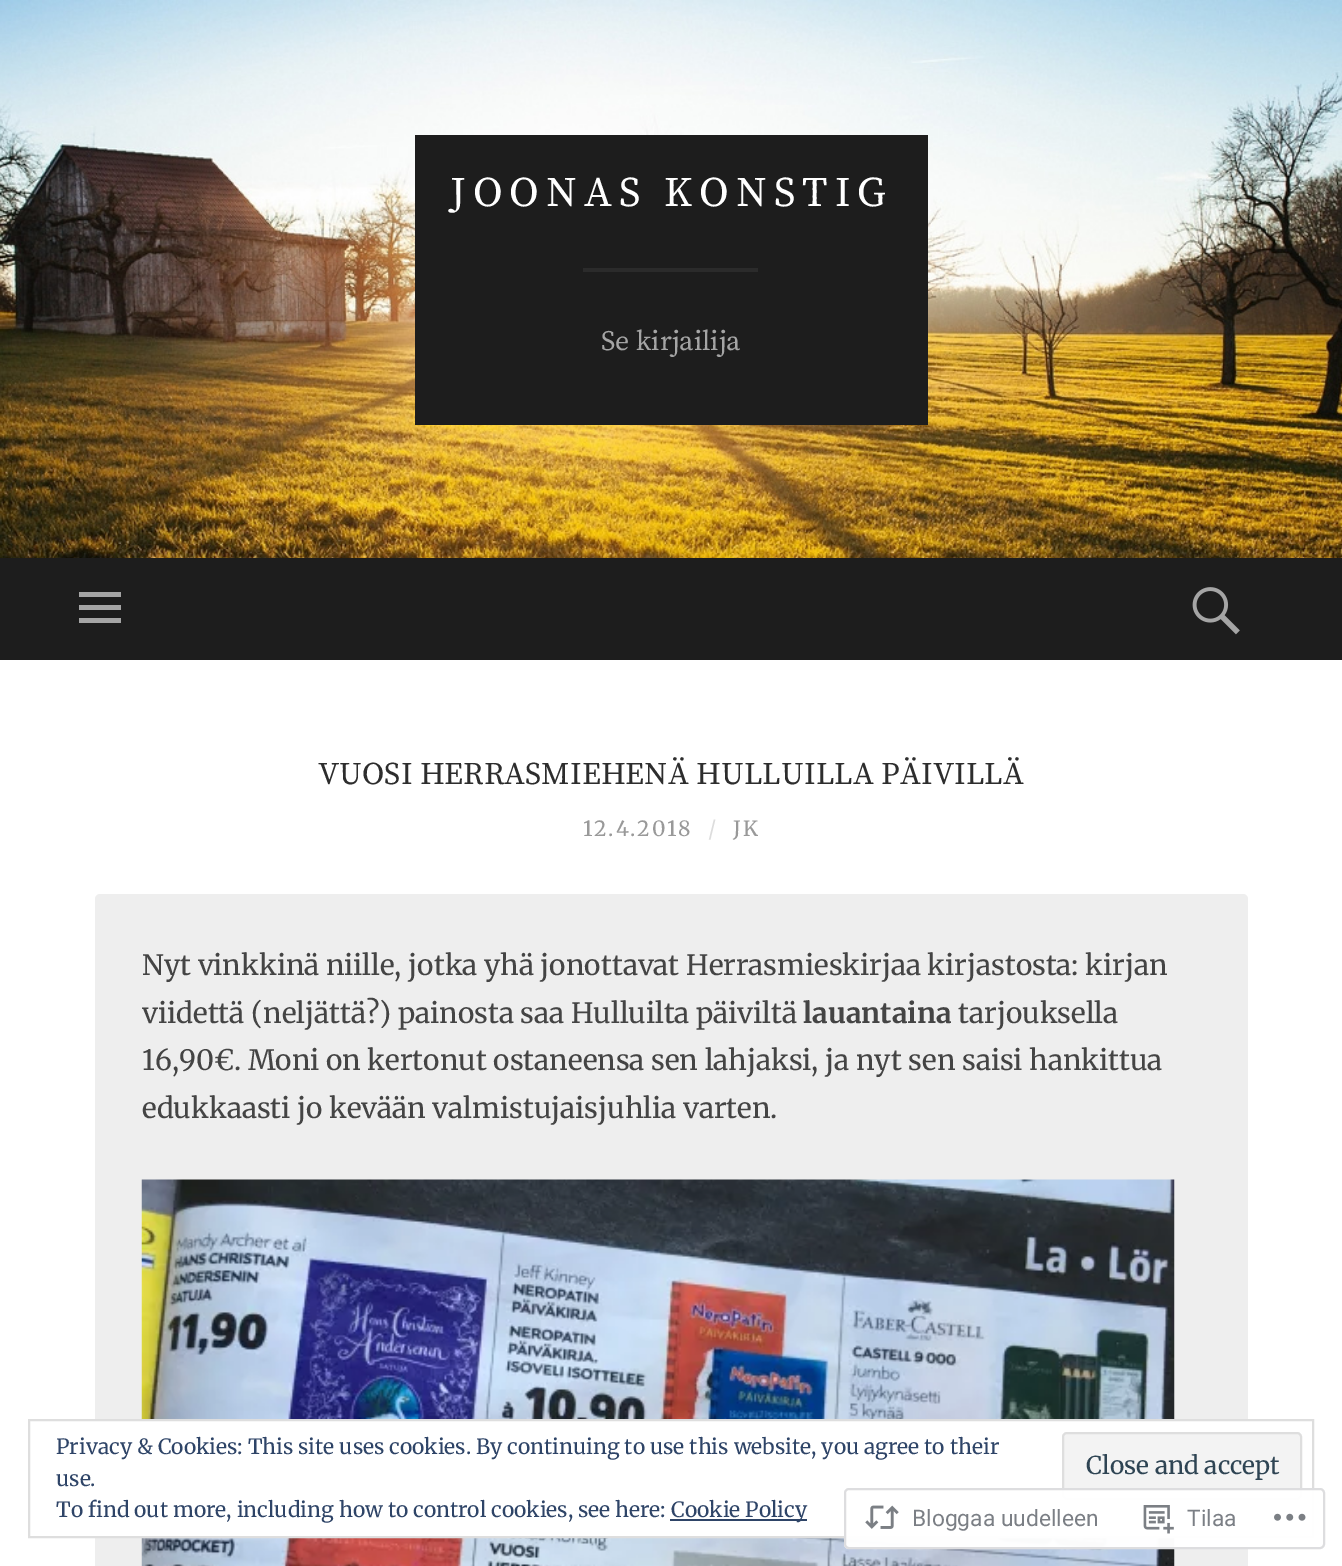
%!PS
<< /PageSize [1342 1566] /PageUsesTransparency true >> setpagedevice
/rgb { dup -16 bitshift 255 div exch dup -8 bitshift 255 and 255 div exch 255 and 255 div setrgbcolor } def
/font { [ exch dup neg 0 0 3 -1 roll 0 0 ] selectfont } def
/text { moveto show } def
/alpha { dup .setfillconstantalpha .setstrokeconstantalpha } def
/roundrect { 5 dict begin { /r /h /w /y /x } { exch def } forall
  x r add y moveto x w add y 2 copy h add r arct x w add y h add x 1 index r arct
  x y h add x y r arct x y 2 copy exch w add exch r arct closepath end } def
/picture { 5 dict begin { /h /w /y /x /name } { exch def } forall
  gsave x y translate w h scale
  w h 8 [w 0 0 h 0 0] name (r) file false 3 colorimage grestore end } def
0 .pushpdf14devicefilter
0 1566 translate 1 -1 scale
4 setmiterlimit
/s1 { /SourceSerifPro-Regular 28 font 16#A5A5A5 rgb } def
/s2 { /SourceSerifPro-Regular 31.5 font 16#2D2D2D rgb } def
/s3 { /Merriweather-Regular 28 font 16#444444 rgb } def
/s4 { /Merriweather-Bold 28 font 16#444444 rgb } def
/s5 { /Merriweather-Regular 21 font 16#2E4467 rgb } def
/s6 { /Merriweather-Regular 24.5 font 16#2E4453 rgb } def
/s7 { /Roboto-Regular 22.75 font 16#7B7F85 rgb } def
16#FFFFFF rgb
0 0 1342 1566 rectfill
(pic1.raw) 0 0 1342 558 picture
16#1D1D1D rgb
415 135 513 290 rectfill
/SourceSerifPro-Regular 42 font
16#FFFFFF rgb
450 206 moveto 7 0 (JOONAS KONSTIG) ashow
16#2B2B2B rgb
583 268 175 4 rectfill
s1
(Se kirjailija) 601 350 text
16#1D1D1D rgb
0 558 1342 102 rectfill
16#A5A5A5 rgb
79 623 moveto 79 618 lineto 121 618 lineto 121 623 lineto closepath 79 592 moveto 121 592 lineto 121 597 lineto 79 597 lineto closepath 79 610 moveto 79 605 lineto 121 605 lineto 121 610 lineto closepath fill
(pic2.raw) 1192 587 48 48 picture
s2
(VUOSI HERRASMIEHENÄ HULLUILLA PÄIVILLÄ) 318 784 text
/Merriweather-Regular 21 font
16#999999 rgb
583 836 moveto 1.75 0 (12.4.2018) ashow
16#DDDDDD rgb
708 836 moveto 1.75 0 (/) ashow
16#999999 rgb
733 836 moveto 1.75 0 (JK) ashow
16#EEEEEE rgb
95 894 1153 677 5 roundrect fill
s3
(Nyt vinkkinä niille, jotka yhä jonottavat Herrasmieskirjaa kirjastosta: kirjan) 142 975 text
(viidettä \(neljättä?\) painosta saa Hulluilta päiviltä) 142 1023 text
s4
(lauantaina) 803 1023 text
s3
(tarjouksella) 958 1023 text
(16,90€. Moni on kertonut ostaneensa sen lahjaksi, ja nyt sen saisi hankittua) 142 1070 text
(edukkaasti jo kevään valmistujaisjuhlia varten.) 142 1118 text
(pic3.raw) 141 1179 1034 387 picture
16#FFFFFF rgb
95 1421 1153 115 rectfill
16#DEDEDE rgb
2 setlinewidth
29 1420 1284 117 rectstroke
s5
(Privacy & Cookies: This site uses cookies. By continuing to use this website, you agree to their) 56 1454 text
(use.) 56 1486 text
16#F3F3F3 rgb
1063 1433 238 66 4 roundrect gsave fill grestore
16#DEDEDE rgb
stroke
s6
(Close and accept) 1086 1474 text
s5
(To find out more, including how to control cookies, see here:) 56 1517 text
670 1519 137 2 rectfill
(Cookie Policy) 671 1517 text
0.98 alpha
16#FFFFFF rgb
844 1488 481 61 5 roundrect fill
16#DCDCDE rgb
845 1489 479 59 4 roundrect stroke
1 alpha
(pic4.raw) 865 1505 34 24 picture
s7
(Bloggaa uudelleen) 912 1526 text
(pic5.raw) 1143 1505 31 29 picture
(Tilaa) 1187 1526 text
(pic6.raw) 1274 1513 32 8 picture
.poppdf14devicefilter showpage
